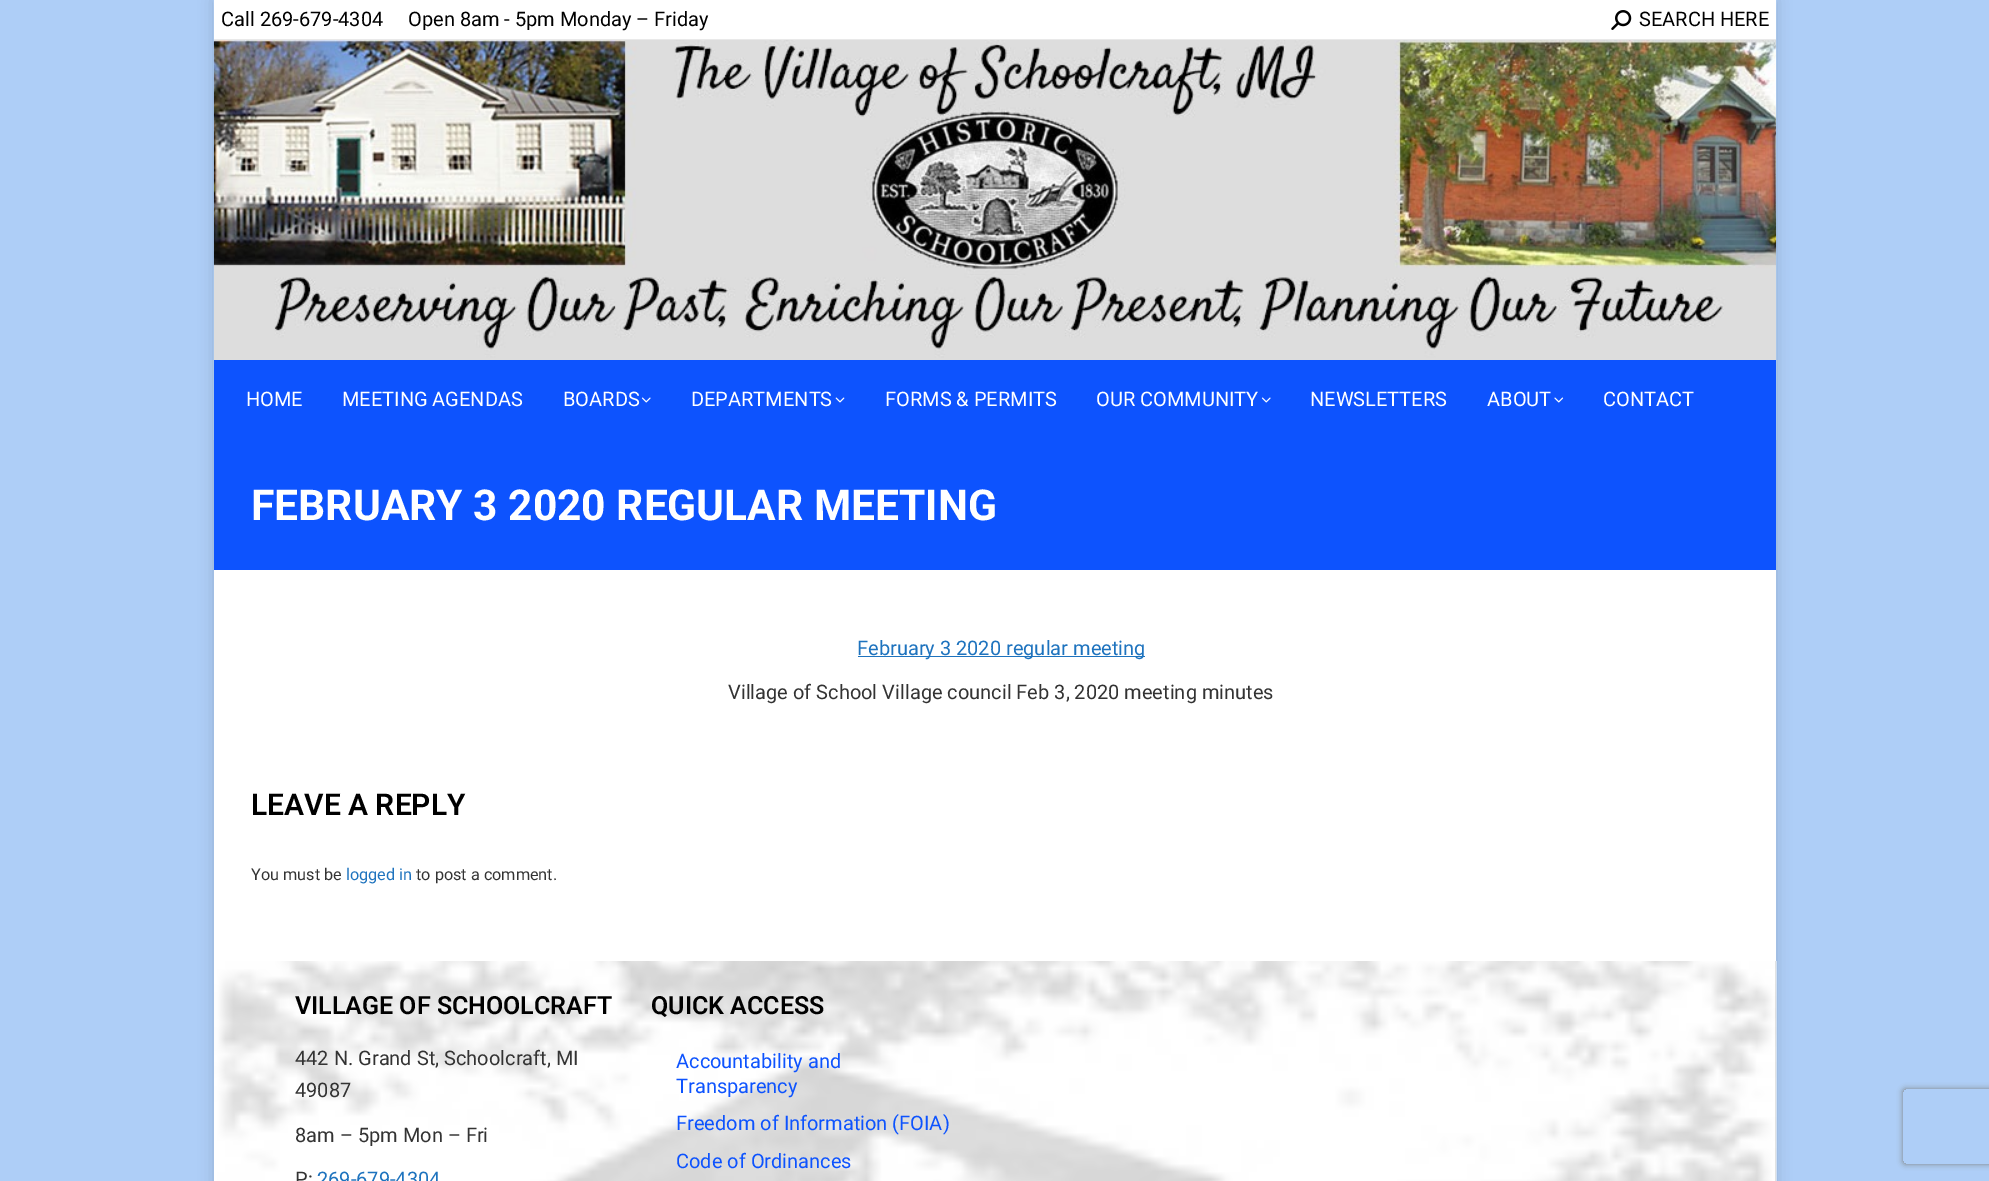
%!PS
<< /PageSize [1989 1181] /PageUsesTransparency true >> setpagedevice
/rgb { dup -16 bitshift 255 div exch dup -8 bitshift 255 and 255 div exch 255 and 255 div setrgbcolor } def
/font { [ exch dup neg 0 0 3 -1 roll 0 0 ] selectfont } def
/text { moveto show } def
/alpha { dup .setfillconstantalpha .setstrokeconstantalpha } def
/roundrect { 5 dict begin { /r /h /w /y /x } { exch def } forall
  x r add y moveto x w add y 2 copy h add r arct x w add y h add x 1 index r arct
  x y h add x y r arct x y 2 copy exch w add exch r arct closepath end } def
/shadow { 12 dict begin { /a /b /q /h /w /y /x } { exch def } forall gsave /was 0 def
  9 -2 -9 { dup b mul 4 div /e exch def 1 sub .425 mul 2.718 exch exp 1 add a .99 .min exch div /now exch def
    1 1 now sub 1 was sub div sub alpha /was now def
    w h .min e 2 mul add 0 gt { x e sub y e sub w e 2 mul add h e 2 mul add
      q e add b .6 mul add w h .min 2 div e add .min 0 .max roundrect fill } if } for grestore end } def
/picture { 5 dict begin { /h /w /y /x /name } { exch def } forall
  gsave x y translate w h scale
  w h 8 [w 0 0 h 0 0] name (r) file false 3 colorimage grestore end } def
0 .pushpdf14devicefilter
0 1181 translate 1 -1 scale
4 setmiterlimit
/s1 { /Roboto-Regular 20 font 16#000000 rgb } def
/s2 { /Roboto-Regular 20 font 16#FFFFFF rgb } def
/s3 { /Roboto-Bold 42.5 font 16#FFFFFF rgb } def
/s4 { /Roboto-Regular 20 font 16#1E73BE rgb } def
/s5 { /Roboto-Regular 20 font 16#333333 rgb } def
/s6 { /Roboto-SemiBold 30 font 16#000000 rgb } def
/s7 { /Roboto-Regular 16.25 font 16#333333 rgb } def
/s8 { /Roboto-Regular 16.25 font 16#1E73BE rgb } def
/s9 { /Roboto-SemiBold 25 font 16#000000 rgb } def
/s10 { /Roboto-Regular 20 font 16#0D53FE rgb } def
16#AECEF7 rgb
0 0 1989 1181 rectfill
16#000000 rgb
214 0 1562 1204 0 7.5 0.15 shadow
16#FFFFFF rgb
214 570 1562 611 rectfill
(pic1.raw) 213 0 1564 440 picture
214 0 1562 39 rectfill
s1
(Call 269-679-4304) 221 26 text
(Open 8am - 5pm Monday – Friday) 408 26 text
(pic2.raw) 1611 10 21 20 picture
(SEARCH HERE) 1639 26 text
16#E9E9E9 rgb
214 39 1562 1 rectfill
16#0D53FE rgb
214 360 1562 80 rectfill
s2
(HOME) 246 406 text
(MEETING AGENDAS) 342 406 text
(BOARDS) 563 406 text
(pic3.raw) 641 397 10 6 picture
(DEPARTMENTS) 691 406 text
(pic4.raw) 835 397 10 6 picture
(FORMS & PERMITS) 885 406 text
(OUR COMMUNITY) 1096 406 text
(pic3.raw) 1261 397 10 6 picture
(NEWSLETTERS) 1310 406 text
(ABOUT) 1487 406 text
(pic5.raw) 1554 397 10 6 picture
(CONTACT) 1603 406 text
16#0D53FE rgb
214 440 1562 130 rectfill
s3
(FEBRUARY 3 2020 REGULAR MEETING) 251 520 text
16#1E73BE rgb
858 656 287 1 rectfill
s4
(February 3 2020 regular meeting) 857 655 text
s5
(Village of School Village council Feb 3, 2020 meeting minutes) 728 699 text
s6
(LEAVE A REPLY) 251 815 text
s7
(You must be) 251 880 text
s8
(logged in) 346 880 text
s7
(to post a comment.) 416 880 text
(pic6.raw) 214 961 1563 220 picture
s9
(VILLAGE OF SCHOOLCRAFT) 295 1014 text
s5
(442 N. Grand St, Schoolcraft, MI) 295 1065 text
(49087) 295 1097 text
(8am – 5pm Mon – Fri) 295 1142 text
(P:) 295 1186 text
s4
(269-679-4304) 317 1186 text
s9
(QUICK ACCESS) 651 1014 text
s10
(Accountability and) 676 1068 text
(Transparency) 676 1093 text
(Freedom of Information \(FOIA\)) 676 1130 text
(Code of Ordinances) 676 1168 text
gsave
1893 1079 moveto 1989 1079 lineto 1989 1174 lineto 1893 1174 lineto closepath 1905.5 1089 moveto 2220.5 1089 lineto 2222 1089 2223 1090 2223 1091.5 curveto 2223 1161.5 lineto 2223 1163 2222 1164 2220.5 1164 curveto 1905.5 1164 lineto 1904 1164 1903 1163 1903 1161.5 curveto 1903 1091.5 lineto 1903 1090 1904 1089 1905.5 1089 curveto closepath eoclip newpath
16#808080 rgb
1903 1089 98 75 2.5 3 1 shadow
grestore
.poppdf14devicefilter showpage
